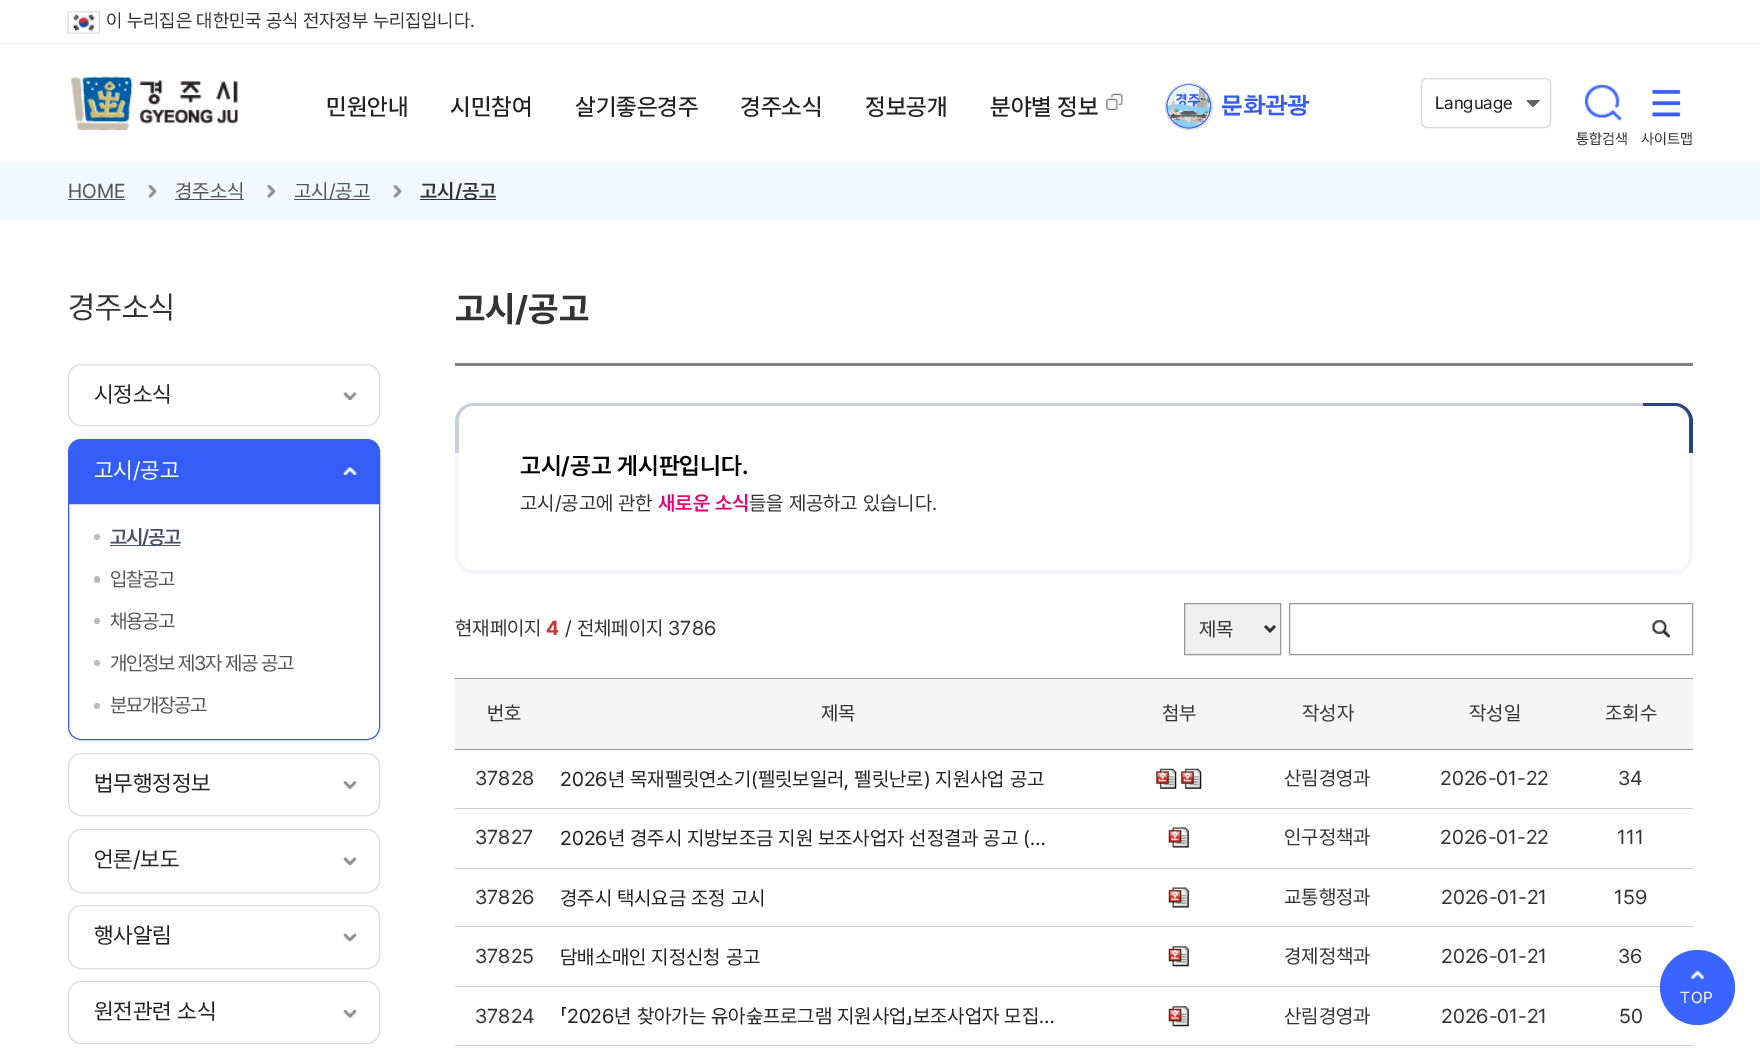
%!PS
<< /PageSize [1760 1050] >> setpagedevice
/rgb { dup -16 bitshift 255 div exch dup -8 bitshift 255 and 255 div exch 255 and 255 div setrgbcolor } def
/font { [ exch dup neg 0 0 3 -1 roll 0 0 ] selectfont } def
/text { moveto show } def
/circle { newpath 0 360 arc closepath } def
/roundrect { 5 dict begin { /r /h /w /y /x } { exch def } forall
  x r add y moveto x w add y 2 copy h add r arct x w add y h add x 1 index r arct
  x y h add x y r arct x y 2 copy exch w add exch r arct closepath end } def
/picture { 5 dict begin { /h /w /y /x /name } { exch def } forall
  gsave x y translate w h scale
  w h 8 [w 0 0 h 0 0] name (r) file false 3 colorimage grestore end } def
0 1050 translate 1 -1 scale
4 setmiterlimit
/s1 { /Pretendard-Regular 18.75 font 16#333333 rgb } def
/s2 { /Pretendard-Medium 23.75 font 16#222222 rgb } def
/s3 { /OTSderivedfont-Bold 23.75 font 16#345DF5 rgb } def
/s4 { /Pretendard-Regular 17.5 font 16#222222 rgb } def
/s5 { /Pretendard-Regular 15 font 16#333333 rgb } def
/s6 { /Pretendard-Regular 20 font 16#555555 rgb } def
/s7 { /Pretendard-SemiBold 20 font 16#333333 rgb } def
/s8 { /Pretendard-Regular 31 font 16#333333 rgb } def
/s9 { /Pretendard-Regular 22.5 font 16#222222 rgb } def
/s10 { /Pretendard-Regular 22.5 font 16#FFFFFF rgb } def
/s11 { /Pretendard-Bold 35 font 16#333333 rgb } def
/s12 { /Pretendard-SemiBold 24 font 16#000000 rgb } def
/s13 { /Pretendard-Regular 20 font 16#333333 rgb } def
/s14 { /Pretendard-SemiBold 20 font 16#E50077 rgb } def
/s15 { /Pretendard-Bold 20 font 16#CC3333 rgb } def
/s16 { /Pretendard-Regular 20 font 16#222222 rgb } def
16#FFFFFF rgb
0 0 1760 1050 rectfill
16#EEEEEE rgb
0 43 1760 1 rectfill
(pic1.raw) 67 11 33 23 picture
s1
(이 누리집은 대한민국 공식 전자정부 누리집입니다.) 106 27 text
(pic2.raw) 71 76 167 55 picture
s2
(민원안내) 326 115 text
(시민참여) 450 115 text
(살기좋은경주) 575 115 text
(경주소식) 740 115 text
(정보공개) 865 115 text
(분야별 정보) 990 115 text
(pic3.raw) 1106 93 17 17 picture
(pic4.raw) 1165 83 47 46 picture
16#DDDDDD rgb
1165.5 83.5 47 46 23 roundrect stroke
s3
(문화관광) 1221 113 text
16#D9D9D9 rgb
1421.5 78.5 129 49 5.5 roundrect stroke
s4
(Language) 1435 109 text
gsave 1527 100 moveto 1533 94 lineto 1539.5 100 lineto 1533 106.5 lineto closepath clip newpath
<< /ShadingType 2 /ColorSpace /DeviceRGB /Coords [1533 106 1533 94] /Extend [true true] /Function << /FunctionType 3 /Domain [0 1] /Functions [<< /FunctionType 2 /Domain [0 1] /C0 [0.4 0.4 0.4] /C1 [0.4 0.4 0.4] /N 1 >> << /FunctionType 2 /Domain [0 1] /C0 [1 1 1] /C1 [1 1 1] /N 1 >>] /Bounds [0.5] /Encode [0 1 0 1] >> >> shfill grestore
(pic5.raw) 1584 84 38 38 picture
s5
(통합검색) 1576 144 text
(pic6.raw) 1652 89 29 28 picture
(사이트맵) 1641 144 text
16#F0F9FF rgb
0 163 1760 57 rectfill
s6
(HOME) 68 198 text
68 199 57 1 rectfill
(pic7.raw) 148 185 9 13 picture
175 199 69 1 rectfill
(경주소식) 175 198 text
(pic8.raw) 267 185 8 13 picture
294 199 76 1 rectfill
(고시/공고) 294 198 text
(pic7.raw) 393 185 9 13 picture
16#333333 rgb
420 199 76 1 rectfill
s7
(고시/공고) 420 198 text
s8
(경주소식) 68 318 text
16#DDDDDD rgb
68.5 364.5 311 61 12.5 roundrect stroke
s9
(시정소식) 94 402 text
(pic9.raw) 343 392 14 8 picture
16#345DF5 rgb
81 439.5 moveto 367 439.5 lineto 374 439.5 379.5 445 379.5 452 curveto 379.5 502.5 lineto 68.5 502.5 lineto 68.5 452 lineto 68.5 445 74 439.5 81 439.5 curveto closepath gsave fill grestore
stroke
s10
(고시/공고) 94 478 text
(pic10.raw) 343 467 14 8 picture
16#345DF5 rgb
68.5 503.5 moveto 379.5 503.5 lineto 379.5 727 lineto 379.5 734 374 739.5 367 739.5 curveto 81 739.5 lineto 74 739.5 68.5 734 68.5 727 curveto closepath stroke
16#BBBBBB rgb
97 537 3 circle fill
16#474F6B rgb
110 545 70 1 rectfill
/Pretendard-SemiBold 20 font
110 544 moveto -1.25 0 (고시/공고) ashow
16#BBBBBB rgb
94 576 6 7 3 roundrect fill
/Pretendard-Regular 20 font
16#555555 rgb
110 586 moveto -1.25 0 (입찰공고) ashow
16#BBBBBB rgb
97 621 3 circle fill
16#555555 rgb
110 628 moveto -1.25 0 (채용공고) ashow
16#BBBBBB rgb
97 663 3 circle fill
16#555555 rgb
110 670 moveto -1.25 0 (개인정보 제3자 제공 공고) ashow
16#BBBBBB rgb
97 706 3 circle fill
16#555555 rgb
110 712 moveto -1.25 0 (분묘개장공고) ashow
16#DDDDDD rgb
68.5 753.5 311 62 12.5 roundrect stroke
s9
(법무행정정보) 94 791 text
(pic11.raw) 343 781 14 8 picture
16#DDDDDD rgb
68.5 829.5 311 63 12.5 roundrect stroke
s9
(언론/보도) 94 867 text
(pic9.raw) 343 857 14 8 picture
16#DDDDDD rgb
68.5 905.5 311 63 12.5 roundrect stroke
s9
(행사알림) 94 943 text
(pic12.raw) 343 933 14 9 picture
16#DDDDDD rgb
68.5 981.5 311 62 12.5 roundrect stroke
s9
(원전관련 소식) 94 1019 text
(pic13.raw) 343 1010 14 8 picture
16#808080 rgb
455 363 1238 3 rectfill
s11
(고시/공고) 455 321 text
16#F4F6F9 rgb
455 403 1238 171 19 roundrect fill
16#CACFD5 rgb
474 403 moveto 1674 403 lineto 1684.5 403 1693 411.5 1693 422 curveto 1693 453 lineto 455 453 lineto 455 422 lineto 455 411.5 463.5 403 474 403 curveto closepath fill
16#2A4483 rgb
1643 403 moveto 1674 403 lineto 1684.5 403 1693 411.5 1693 422 curveto 1693 453 lineto 1643 453 lineto closepath fill
16#FFFFFF rgb
459 406 1230 164 15 roundrect fill
s12
(고시/공고 게시판입니다.) 520 474 text
s13
(고시/공고에 관한) 520 510 text
s14
(새로운 소식) 658 510 text
s13
(들을 제공하고 있습니다.) 749 510 text
(현재페이지) 455 635 text
s15
(4) 546 635 text
s13
(/ 전체페이지 3786) 565 635 text
16#EFEFEF rgb
1184.5 603.5 moveto 1280.5 603.5 lineto 1280.5 654.5 lineto 1184.5 654.5 lineto closepath gsave fill grestore
16#999999 rgb
stroke
16#333333 rgb
2.5 setlinewidth
1265 626 moveto 1270 631 lineto 1275 626 lineto stroke
(제목) 1199 636 text
16#999999 rgb
1 setlinewidth
1289.5 603.5 403 51 rectstroke
(pic14.raw) 1652 620 18 18 picture
16#9A9A9A rgb
455 678 1238 1 rectfill
16#F5F5F5 rgb
455 679 1238 70 rectfill
s13
(번호) 487 720 text
(제목) 821 720 text
(첨부) 1162 720 text
(작성자) 1302 720 text
(작성일) 1469 720 text
16#9A9A9A rgb
455 749 1238 1 rectfill
s13
(조회수) 1605 720 text
(37828) 475 785 text
s16
(2026년 목재펠릿연소기\(펠릿보일러, 펠릿난로\) 지원사업 공고) 560 786 text
(pic15.raw) 1156 768 21 21 picture
(pic15.raw) 1181 768 21 21 picture
s13
(산림경영과) 1284 785 text
(2026-01-22) 1440 785 text
16#CCCCCC rgb
455 808 1238 1 rectfill
s13
(34) 1618 785 text
(37827) 475 844 text
s16
(2026년 경주시 지방보조금 지원 보조사업자 선정결과 공고 \(…) 560 845 text
(pic16.raw) 1168 827 21 21 picture
s13
(인구정책과) 1284 844 text
(2026-01-22) 1440 844 text
16#CCCCCC rgb
455 868 1238 1 rectfill
s13
(111) 1617 844 text
(37826) 475 904 text
s16
(경주시 택시요금 조정 고시) 560 905 text
(pic16.raw) 1168 887 21 21 picture
s13
(교통행정과) 1284 904 text
(2026-01-21) 1441 904 text
16#CCCCCC rgb
455 926 1238 1 rectfill
s13
(159) 1614 904 text
(37825) 475 963 text
s16
(담배소매인 지정신청 공고) 560 964 text
(pic17.raw) 1168 946 21 21 picture
s13
(경제정책과) 1284 963 text
(2026-01-21) 1441 963 text
16#CCCCCC rgb
455 986 1206 1 rectfill
s13
(36) 1618 963 text
(37824) 475 1023 text
s16
(「2026년 찾아가는 유아숲프로그램 지원사업」보조사업자 모집…) 560 1023 text
(pic17.raw) 1168 1006 21 21 picture
s13
(산림경영과) 1284 1023 text
(2026-01-21) 1441 1023 text
16#CCCCCC rgb
455 1045 1238 1 rectfill
s13
(50) 1619 1023 text
16#3A64FF rgb
1697.5 987.5 37.5 circle fill
(pic18.raw) 1691 971 13 8 picture
/Pretendard-Regular 16 font
16#FFFFFF rgb
1680 1003 moveto 1 0 (TOP) ashow
showpage
